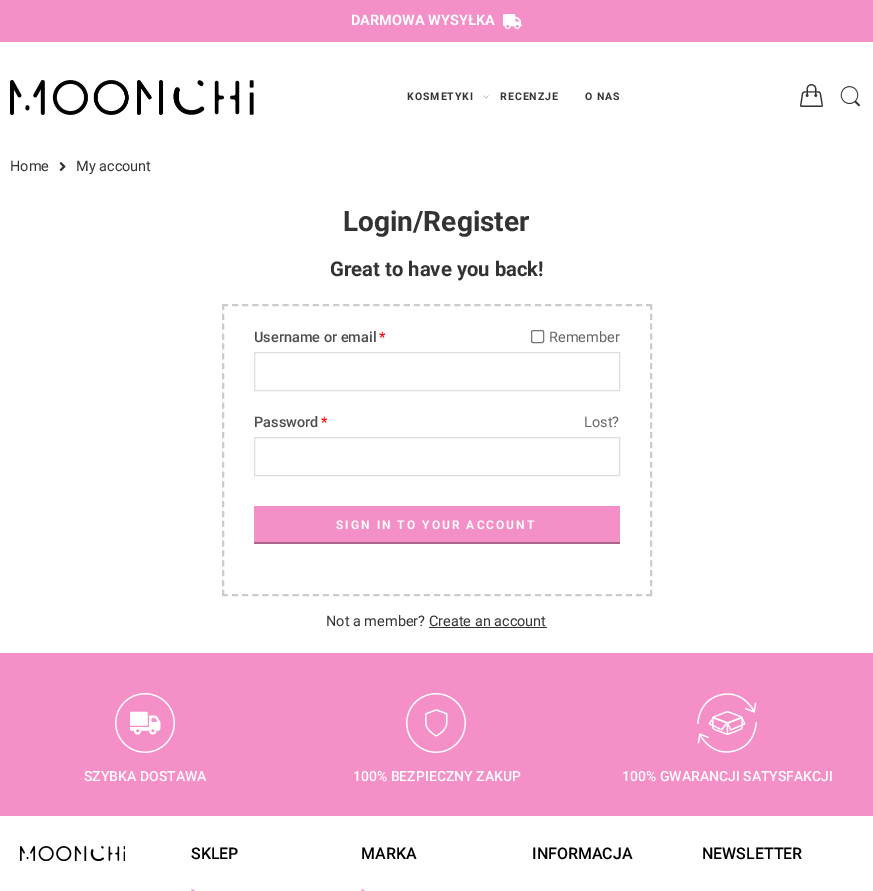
%!PS
<< /PageSize [873 891] >> setpagedevice
/rgb { dup -16 bitshift 255 div exch dup -8 bitshift 255 and 255 div exch 255 and 255 div setrgbcolor } def
/font { [ exch dup neg 0 0 3 -1 roll 0 0 ] selectfont } def
/text { moveto show } def
/roundrect { 5 dict begin { /r /h /w /y /x } { exch def } forall
  x r add y moveto x w add y 2 copy h add r arct x w add y h add x 1 index r arct
  x y h add x y r arct x y 2 copy exch w add exch r arct closepath end } def
/picture { 5 dict begin { /h /w /y /x /name } { exch def } forall
  gsave x y translate w h scale
  w h 8 [w 0 0 h 0 0] name (r) file false 3 colorimage grestore end } def
0 891 translate 1 -1 scale
4 setmiterlimit
/s1 { /Roboto-Bold 14.5 font 16#FFFFFF rgb } def
/s2 { /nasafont-Regular 23 font 16#333333 rgb } def
/s3 { /Roboto-Regular 14.5 font 16#333333 rgb } def
/s4 { /Roboto-Bold 28 font 16#333333 rgb } def
/s5 { /Roboto-Bold 20.25 font 16#333333 rgb } def
/s6 { /Roboto-Medium 14.5 font 16#4D4D4D rgb } def
/s7 { /Roboto-Medium 14.5 font 16#FF0000 rgb } def
/s8 { /Roboto-Regular 14.5 font 16#666666 rgb } def
/s9 { /Roboto-Medium 14 font 16#FFFFFF rgb } def
/s10 { /Roboto-Medium 16 font 16#000000 rgb } def
16#FFFFFF rgb
0 0 873 891 rectfill
16#F58FC7 rgb
0 0 873 42 rectfill
s1
(DARMOWA WYSYŁKA) 351 25 text
(pic1.raw) 503 14 19 15 picture
(pic2.raw) 10 80 244 35 picture
/Roboto-Bold 10.5 font
16#333333 rgb
407 100 moveto 1 0 (KOSMETYKI) ashow
(pic3.raw) 483 95 6 4 picture
500 100 moveto 1 0 (RECENZJE) ashow
585 100 moveto 1 0 (O NAS) ashow
s2
(4) 800 107 text
(pic4.raw) 840 86 21 21 picture
s3
(Home) 10 171 text
(pic5.raw) 59 162 7 9 picture
(My account) 76 171 text
s4
(Login/Register) 343 231 text
s5
(Great to have you back!) 330 276 text
16#CCCCCC rgb
2 setlinewidth
[6 4.1] 0 setdash
222 305 moveto 652 305 lineto stroke
[6 3.86] 0 setdash
651 304 moveto 651 596 lineto stroke
[6 4.1] 0 setdash
222 595 moveto 652 595 lineto stroke
[6 3.86] 0 setdash
223 304 moveto 223 596 lineto stroke
s6
(Username or email) 254 342 text
s7
(*) 379 342 text
16#767676 rgb
1 setlinewidth
[] 0 setdash
531.5 330.5 12 12 1.5 roundrect stroke
s8
(Remember) 549 342 text
16#DEDEDE rgb
254.5 352.5 365 38 rectstroke
s6
(Password) 254 427 text
s7
(*) 321 427 text
s8
(Lost?) 584 427 text
16#DEDEDE rgb
254.5 437.5 365 38 rectstroke
16#F58FC7 rgb
254 506 366 36 rectfill
16#AC648B rgb
254 542 366 2 rectfill
/Roboto-Bold 12 font
16#FFFFFF rgb
336 529 moveto 2 0 (SIGN IN TO YOUR ACCOUNT) ashow
s3
(Not a member? Create an account) 326 626 text
429 627 118 1 rectfill
16#F58FC7 rgb
0 653 873 163 rectfill
(pic6.raw) 115 693 60 60 picture
s9
(SZYBKA DOSTAWA) 84 781 text
(pic7.raw) 406 693 60 60 picture
(100% BEZPIECZNY ZAKUP) 353 781 text
(pic8.raw) 697 693 60 60 picture
(100% GWARANCJI SATYSFAKCJI) 622 781 text
(pic9.raw) 20 846 105 15 picture
s10
(SKLEP) 191 859 text
16#F58FC7 rgb
198.5 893 moveto 191.5 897 lineto 191.5 889 lineto closepath fill
s10
(MARKA) 361 859 text
16#F58FC7 rgb
368.5 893 moveto 361.5 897 lineto 361.5 889 lineto closepath fill
s10
(INFORMACJA) 532 859 text
(NEWSLETTER) 702 859 text
showpage
